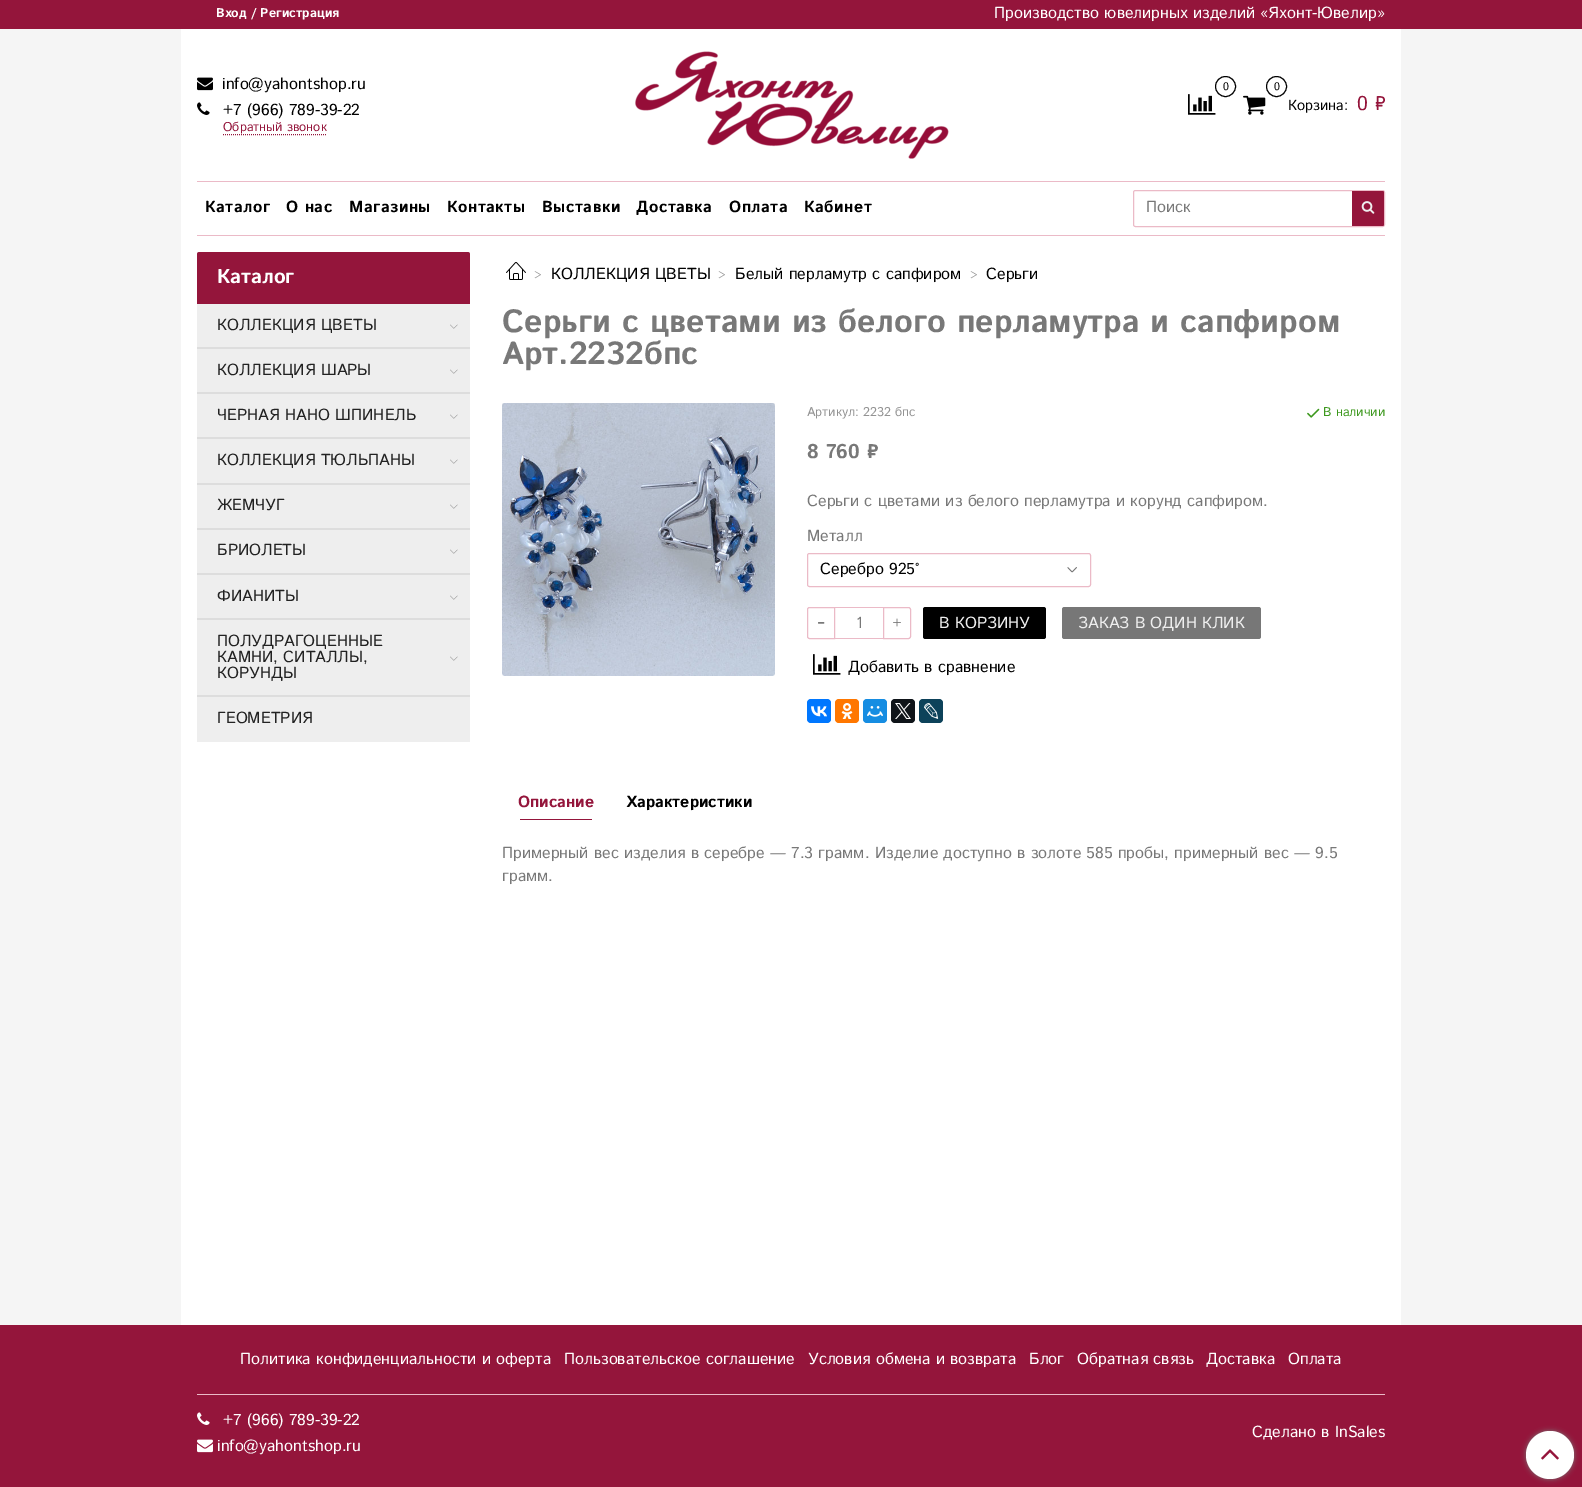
%!PS
<< /PageSize [1582 1487] /PageUsesTransparency true >> setpagedevice
/rgb { dup -16 bitshift 255 div exch dup -8 bitshift 255 and 255 div exch 255 and 255 div setrgbcolor } def
/font { [ exch dup neg 0 0 3 -1 roll 0 0 ] selectfont } def
/text { moveto show } def
/alpha { dup .setfillconstantalpha .setstrokeconstantalpha } def
/circle { newpath 0 360 arc closepath } def
/roundrect { 5 dict begin { /r /h /w /y /x } { exch def } forall
  x r add y moveto x w add y 2 copy h add r arct x w add y h add x 1 index r arct
  x y h add x y r arct x y 2 copy exch w add exch r arct closepath end } def
/shadow { 12 dict begin { /a /b /q /h /w /y /x } { exch def } forall gsave /was 0 def
  9 -2 -9 { dup b mul 4 div /e exch def 1 sub .425 mul 2.718 exch exp 1 add a .99 .min exch div /now exch def
    1 1 now sub 1 was sub div sub alpha /was now def
    w h .min e 2 mul add 0 gt { x e sub y e sub w e 2 mul add h e 2 mul add
      q e add b .6 mul add w h .min 2 div e add .min 0 .max roundrect fill } if } for grestore end } def
/picture { 5 dict begin { /h /w /y /x /name } { exch def } forall
  gsave x y translate w h scale
  w h 8 [w 0 0 h 0 0] name (r) file false 3 colorimage grestore end } def
0 .pushpdf14devicefilter
0 1487 translate 1 -1 scale
4 setmiterlimit
/s1 { /IstokWeb-Bold 12.75 font 16#FFFFFF rgb } def
/s2 { /IstokWeb-Regular 16 font 16#FFFFFF rgb } def
/s3 { /IstokWeb-Regular 16 font 16#000000 rgb } def
/s4 { /IstokWeb-Regular 12.75 font 16#94153B rgb } def
/s5 { /IstokWeb-Regular 11 font 16#000000 rgb } def
/s6 { /IstokWeb-Regular 14.5 font 16#000000 rgb } def
/s7 { /IstokWeb-Regular 20 font 16#94153B rgb } def
/s8 { /IstokWeb-Regular 16 font 16#787878 rgb } def
/s9 { /IstokWeb-Bold 20 font 16#FFFFFF rgb } def
/s10 { /IstokWeb-Regular 16 font 16#222222 rgb } def
/s11 { /IstokWeb-Regular 12 font 16#939393 rgb } def
/s12 { /IstokWeb-Bold 32 font 16#787878 rgb } def
/s13 { /IstokWeb-Regular 12.75 font 16#939393 rgb } def
/s14 { /IstokWeb-Regular 12.75 font 16#3C981D rgb } def
/s15 { /IstokWeb-Bold 20 font 16#787878 rgb } def
/s16 { /IstokWeb-Regular 16 font 16#EEEEEE rgb } def
/s17 { /IstokWeb-Bold 16 font 16#94153B rgb } def
/s18 { /IstokWeb-Bold 16 font 16#000000 rgb } def
16#F5F5F5 rgb
0 0 1582 1487 rectfill
16#94153B rgb
0 0 1582 29 rectfill
s1
(Вход / Регистрация) 216 17 text
s2
(Производство ювелирных изделий «Яхонт-Ювелир») 994 18 text
181 29 1220 1296 rectfill
(pic1.raw) 197 77 16 14 picture
s3
(info@yahontshop.ru) 222 89 text
(pic2.raw) 197 102 13 13 picture
(+7 \(966\) 789-39-22) 223 115 text
16#94153B rgb
[1 1] 0 setdash
223 134.5 moveto 327 134.5 lineto stroke
s4
(Обратный звонок) 223 131 text
(pic3.raw) 635 51 314 108 picture
(pic4.raw) 1188 94 28 21 picture
16#000000 rgb
[] 0 setdash
1225.5 86.5 10 circle stroke
s5
(0) 1223 90 text
1276.5 86.5 10 circle stroke
(0) 1274 90 text
(pic5.raw) 1243 95 23 20 picture
s6
(Корзина:) 1288 110 text
s7
(0 ₽) 1357 110 text
16#EBBAC7 rgb
197 181 1188 1 rectfill
197 235 1188 1 rectfill
/IstokWeb-Bold 16 font
16#000000 rgb
205 212 moveto 0.5 0 (Каталог) ashow
286 212 moveto 0.5 0 (О нас) ashow
349 212 moveto 0.5 0 (Магазины) ashow
447 212 moveto 0.5 0 (Контакты) ashow
542 212 moveto 0.5 0 (Выставки) ashow
636 212 moveto 0.5 0 (Доставка) ashow
729 212 moveto 0.5 0 (Оплата) ashow
804 212 moveto 0.5 0 (Кабинет) ashow
16#EBBAC7 rgb
1133.5 190.5 251 36 2 roundrect stroke
s8
(Поиск) 1146 212 text
16#94153B rgb
1352 191 moveto 1382.5 191 lineto 1383.5 191 1384 191.5 1384 192.5 curveto 1384 224.5 lineto 1384 225.5 1383.5 226 1382.5 226 curveto 1352 226 lineto closepath fill
(pic6.raw) 1361 201 14 13 picture
199.5 252 moveto 467.5 252 lineto 469 252 470 253 470 254.5 curveto 470 304 lineto 197 304 lineto 197 254.5 lineto 197 253 198 252 199.5 252 curveto closepath fill
s9
(Каталог) 217 283 text
16#EEEEEE rgb
197 304 273 438 rectfill
16#DDDDDD rgb
197 347 273 2 rectfill
s10
(КОЛЛЕКЦИЯ ЦВЕТЫ) 217 330 text
(pic7.raw) 450 324 8 5 picture
16#DDDDDD rgb
197 392 273 2 rectfill
s10
(КОЛЛЕКЦИЯ ШАРЫ) 217 375 text
(pic7.raw) 450 369 8 5 picture
16#DDDDDD rgb
197 437 273 2 rectfill
s10
(ЧЕРНАЯ НАНО ШПИНЕЛЬ) 217 420 text
(pic7.raw) 450 414 8 5 picture
16#DDDDDD rgb
197 483 273 2 rectfill
s10
(КОЛЛЕКЦИЯ ТЮЛЬПАНЫ) 217 465 text
(pic7.raw) 450 459 8 5 picture
16#DDDDDD rgb
197 528 273 2 rectfill
s10
(ЖЕМЧУГ) 217 510 text
(pic7.raw) 450 504 8 5 picture
16#DDDDDD rgb
197 573 273 2 rectfill
s10
(БРИОЛЕТЫ) 217 555 text
(pic7.raw) 450 549 8 5 picture
16#DDDDDD rgb
197 618 273 2 rectfill
s10
(ФИАНИТЫ) 217 601 text
(pic7.raw) 450 595 8 5 picture
16#DDDDDD rgb
197 695 273 2 rectfill
s10
(ПОЛУДРАГОЦЕННЫЕ) 217 646 text
(КАМНИ, СИТАЛЛЫ,) 217 662 text
(КОРУНДЫ) 217 678 text
(pic7.raw) 450 656 8 5 picture
(ГЕОМЕТРИЯ) 217 723 text
(pic8.raw) 506 262 20 18 picture
s11
(>) 534 279 text
s3
(КОЛЛЕКЦИЯ ЦВЕТЫ) 551 279 text
s11
(>) 718 279 text
s3
(Белый перламутр с сапфиром) 735 279 text
s11
(>) 970 279 text
s3
(Серьги) 986 279 text
s12
(Серьги с цветами из белого перламутра и сапфиром) 502 332 text
(Арт.2232бпс) 502 364 text
(pic9.raw) 502 403 273 273 picture
s13
(Артикул: 2232 бпс) 807 416 text
(pic10.raw) 1307 408 13 10 picture
s14
(В наличии) 1323 416 text
s15
(8 760 ₽) 807 458 text
s8
(Серьги с цветами из белого перламутра и корунд сапфиром.) 807 506 text
(Металл) 807 541 text
(pic11.raw) 1067 567 10 6 picture
16#EBBAC7 rgb
807.5 553.5 283 33 2 roundrect stroke
s3
(Серебро 925°) 820 574 text
16#EBBAC7 rgb
809.5 607.5 moveto 834.5 607.5 lineto 834.5 638.5 lineto 809.5 638.5 lineto 808.5 638.5 807.5 637.5 807.5 636.5 curveto 807.5 609.5 lineto 807.5 608.5 808.5 607.5 809.5 607.5 curveto closepath stroke
(pic12.raw) 818 622 7 2 picture
835 607 48 1 rectfill
835 638 48 1 rectfill
s8
(1) 856 628 text
16#EBBAC7 rgb
883.5 607.5 moveto 908.5 607.5 lineto 909.5 607.5 910.5 608.5 910.5 609.5 curveto 910.5 636.5 lineto 910.5 637.5 909.5 638.5 908.5 638.5 curveto 883.5 638.5 lineto closepath stroke
(pic13.raw) 893 618 8 9 picture
16#000000 rgb
923 607 123 32 2.5 roundrect fill
s16
(В КОРЗИНУ) 939 628 text
16#777777 rgb
1062 607 199 32 2.5 roundrect fill
s16
(ЗАКАЗ В ОДИН КЛИК) 1078 628 text
(pic4.raw) 813 654 28 21 picture
s3
(Добавить в сравнение) 848 672 text
16#0077FF rgb
807 699 24 24 4 roundrect fill
(pic14.raw) 811 706 16 11 picture
16#FF7700 rgb
835 699 24 24 4 roundrect fill
(pic15.raw) 841 703 12 16 picture
16#168DE2 rgb
863 699 24 24 4 roundrect fill
(pic16.raw) 867 706 16 11 picture
16#0F1419 rgb
891 699 24 24 4 roundrect fill
(pic17.raw) 895 703 16 16 picture
16#0D425A rgb
919 699 24 24 4 roundrect fill
(pic18.raw) 924 703 15 16 picture
s17
(Описание) 518 807 text
520 819 72 1 rectfill
s18
(Характеристики) 626 807 text
s8
(Примерный вес изделия в серебре — 7.3 грамм. Изделие доступно в золоте 585 пробы, примерный вес — 9.5) 502 858 text
(грамм.) 502 881 text
16#94153B rgb
0 1325 1582 162 rectfill
16#EBBAC7 rgb
197 1394 1188 1 rectfill
s2
(Политика конфиденциальности и оферта) 240 1364 text
(Пользовательское соглашение) 564 1364 text
(Условия обмена и возврата) 808 1364 text
(Блог) 1029 1364 text
(Обратная связь) 1077 1364 text
(Доставка) 1206 1364 text
(Оплата) 1288 1364 text
(pic19.raw) 197 1412 13 13 picture
(+7 \(966\) 789-39-22) 223 1425 text
(pic20.raw) 197 1439 16 14 picture
(info@yahontshop.ru) 217 1451 text
(Сделано в InSales) 1252 1437 text
16#777777 rgb
1526 1431 48 48 24 2.5 1 shadow
16#FFFFFF rgb
1550 1455 24 circle fill
(pic21.raw) 1541 1449 18 11 picture
.poppdf14devicefilter showpage
